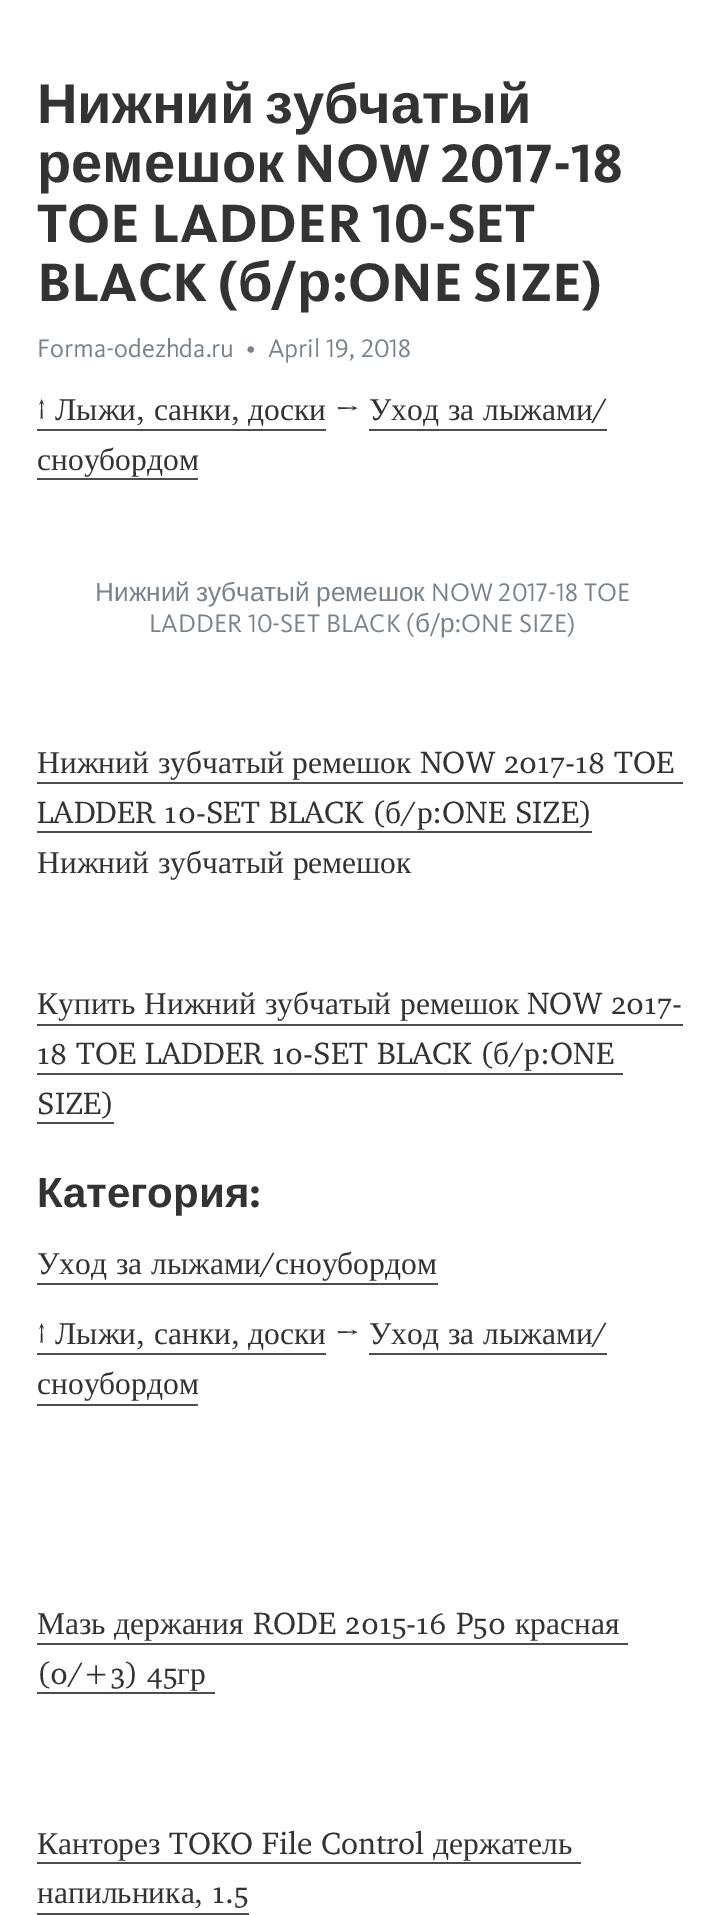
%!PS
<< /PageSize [723 1915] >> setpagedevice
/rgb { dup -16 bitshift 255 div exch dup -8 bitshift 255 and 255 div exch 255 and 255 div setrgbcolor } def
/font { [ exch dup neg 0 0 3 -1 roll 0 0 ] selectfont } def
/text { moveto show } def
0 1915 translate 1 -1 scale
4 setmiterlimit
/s1 { /LiberationSans-Bold 56 font 16#333333 rgb } def
/s2 { /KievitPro-Bold 56 font 16#333333 rgb } def
/s3 { /KievitPro-Regular 26.25 font 16#79828B rgb } def
/s4 { /Caladea-Regular 31.5 font 16#333333 rgb } def
/s5 { /LiberationSerif-Regular 31.5 font 16#333333 rgb } def
/s6 { /Caladea-Bold 31.5 font 16#333333 rgb } def
/s7 { /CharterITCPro-Regular 31.5 font 16#333333 rgb } def
/s8 { /LiberationSans-Regular 26.25 font 16#79828B rgb } def
/s9 { /LiberationSans-Bold 42 font 16#333333 rgb } def
/s10 { /KievitPro-Bold 42 font 16#333333 rgb } def
16#FFFFFF rgb
0 0 723 1915 rectfill
/LiberationSans-Bold 56 font
16#333333 rgb
37 123 moveto -5 0 32 (Нижний зубчатый) widthshow
(ремешок) 37 182 text
s2
(NOW 2017-18) 294 182 text
(TOE LADDER 10-SET) 37 242 text
(BLACK \() 37 301 text
s1
(б) 238 301 text
s2
(/) 272 301 text
s1
(р) 297 301 text
s2
(:ONE SIZE\)) 332 301 text
s3
(Forma-odezhda.ru) 37 357 text
(•) 246 357 text
(April 19, 2018) 268 357 text
s4
(↑) 37 420 text
s5
(Лыжи) 55 420 text
(санки) 154 420 text
(доски) 248 420 text
s6
(→) 335 420 text
/LiberationSerif-Regular 31.5 font
369 420 moveto 1 0 32 (Уход за лыжами) widthshow
16#4D4D4D rgb
369 429 238 2 rectfill
s7
(/) 592 420 text
(,) 136 420 text
16#4D4D4D rgb
37 429 289 2 rectfill
s7
(,) 231 420 text
s5
(сноубордом) 37 470 text
16#4D4D4D rgb
37 478 161 2 rectfill
s8
(Нижний) 95 601 text
(зубчатый) 196 601 text
(ремешок) 316 601 text
s3
(NOW 2017-18 TOE) 431 601 text
(LADDER 10-SET BLACK \() 149 632 text
s8
(б) 415 632 text
s3
(/) 430 632 text
s8
(р) 440 632 text
s3
(:ONE SIZE\)) 455 632 text
s5
(Нижний) 37 773 text
(зубчатый) 158 773 text
(ремешок) 292 773 text
16#4D4D4D rgb
37 782 646 2 rectfill
s7
(NOW 2017-18 TOE) 420 773 text
(LADDER 10-SET BLACK \() 37 823 text
s5
(б) 385 823 text
s7
(/) 401 823 text
s5
(р) 417 823 text
16#4D4D4D rgb
37 831 555 2 rectfill
s7
(:ONE SIZE\)) 432 823 text
/LiberationSerif-Regular 31.5 font
37 873 moveto 1 0 32 (Нижний зубчатый ремешок) widthshow
(Купить) 37 1014 text
(Нижний) 144 1014 text
(зубчатый) 265 1014 text
(ремешок) 400 1014 text
16#4D4D4D rgb
37 1024 646 2 rectfill
s7
(NOW 2017-) 527 1014 text
(18 TOE LADDER 10-SET BLACK \() 37 1064 text
s5
(б) 493 1064 text
s7
(/) 509 1064 text
s5
(р) 524 1064 text
16#4D4D4D rgb
37 1073 586 2 rectfill
s7
(:ONE) 540 1064 text
(SIZE\)) 37 1114 text
16#4D4D4D rgb
37 1122 77 2 rectfill
s9
(Категория) 37 1207 text
s10
(:) 249 1207 text
/LiberationSerif-Regular 31.5 font
37 1274 moveto 1 0 32 (Уход за лыжами) widthshow
16#4D4D4D rgb
37 1283 401 2 rectfill
s7
(/) 260 1274 text
s5
(сноубордом) 275 1274 text
s4
(↑) 37 1344 text
s5
(Лыжи) 55 1344 text
(санки) 154 1344 text
(доски) 248 1344 text
s6
(→) 335 1344 text
/LiberationSerif-Regular 31.5 font
369 1344 moveto 1 0 32 (Уход за лыжами) widthshow
16#4D4D4D rgb
369 1353 238 2 rectfill
s7
(/) 592 1344 text
(,) 136 1344 text
16#4D4D4D rgb
37 1353 289 2 rectfill
s7
(,) 231 1344 text
s5
(сноубордом) 37 1394 text
16#4D4D4D rgb
37 1404 161 2 rectfill
s5
(Мазь) 37 1634 text
(держания) 114 1634 text
16#4D4D4D rgb
37 1643 591 2 rectfill
s7
(RODE 2015-16 P50) 253 1634 text
s5
(красная) 515 1634 text
s7
(\(0/+3\) 45) 37 1684 text
s5
(гр) 177 1684 text
16#4D4D4D rgb
37 1692 178 2 rectfill
s5
(Канторез) 37 1854 text
s7
(TOKO File Control) 169 1854 text
s5
(держатель) 433 1854 text
16#4D4D4D rgb
37 1862 544 2 rectfill
s5
(напильника) 37 1903 text
s7
(, 1.5) 194 1903 text
16#4D4D4D rgb
37 1913 212 2 rectfill
showpage
